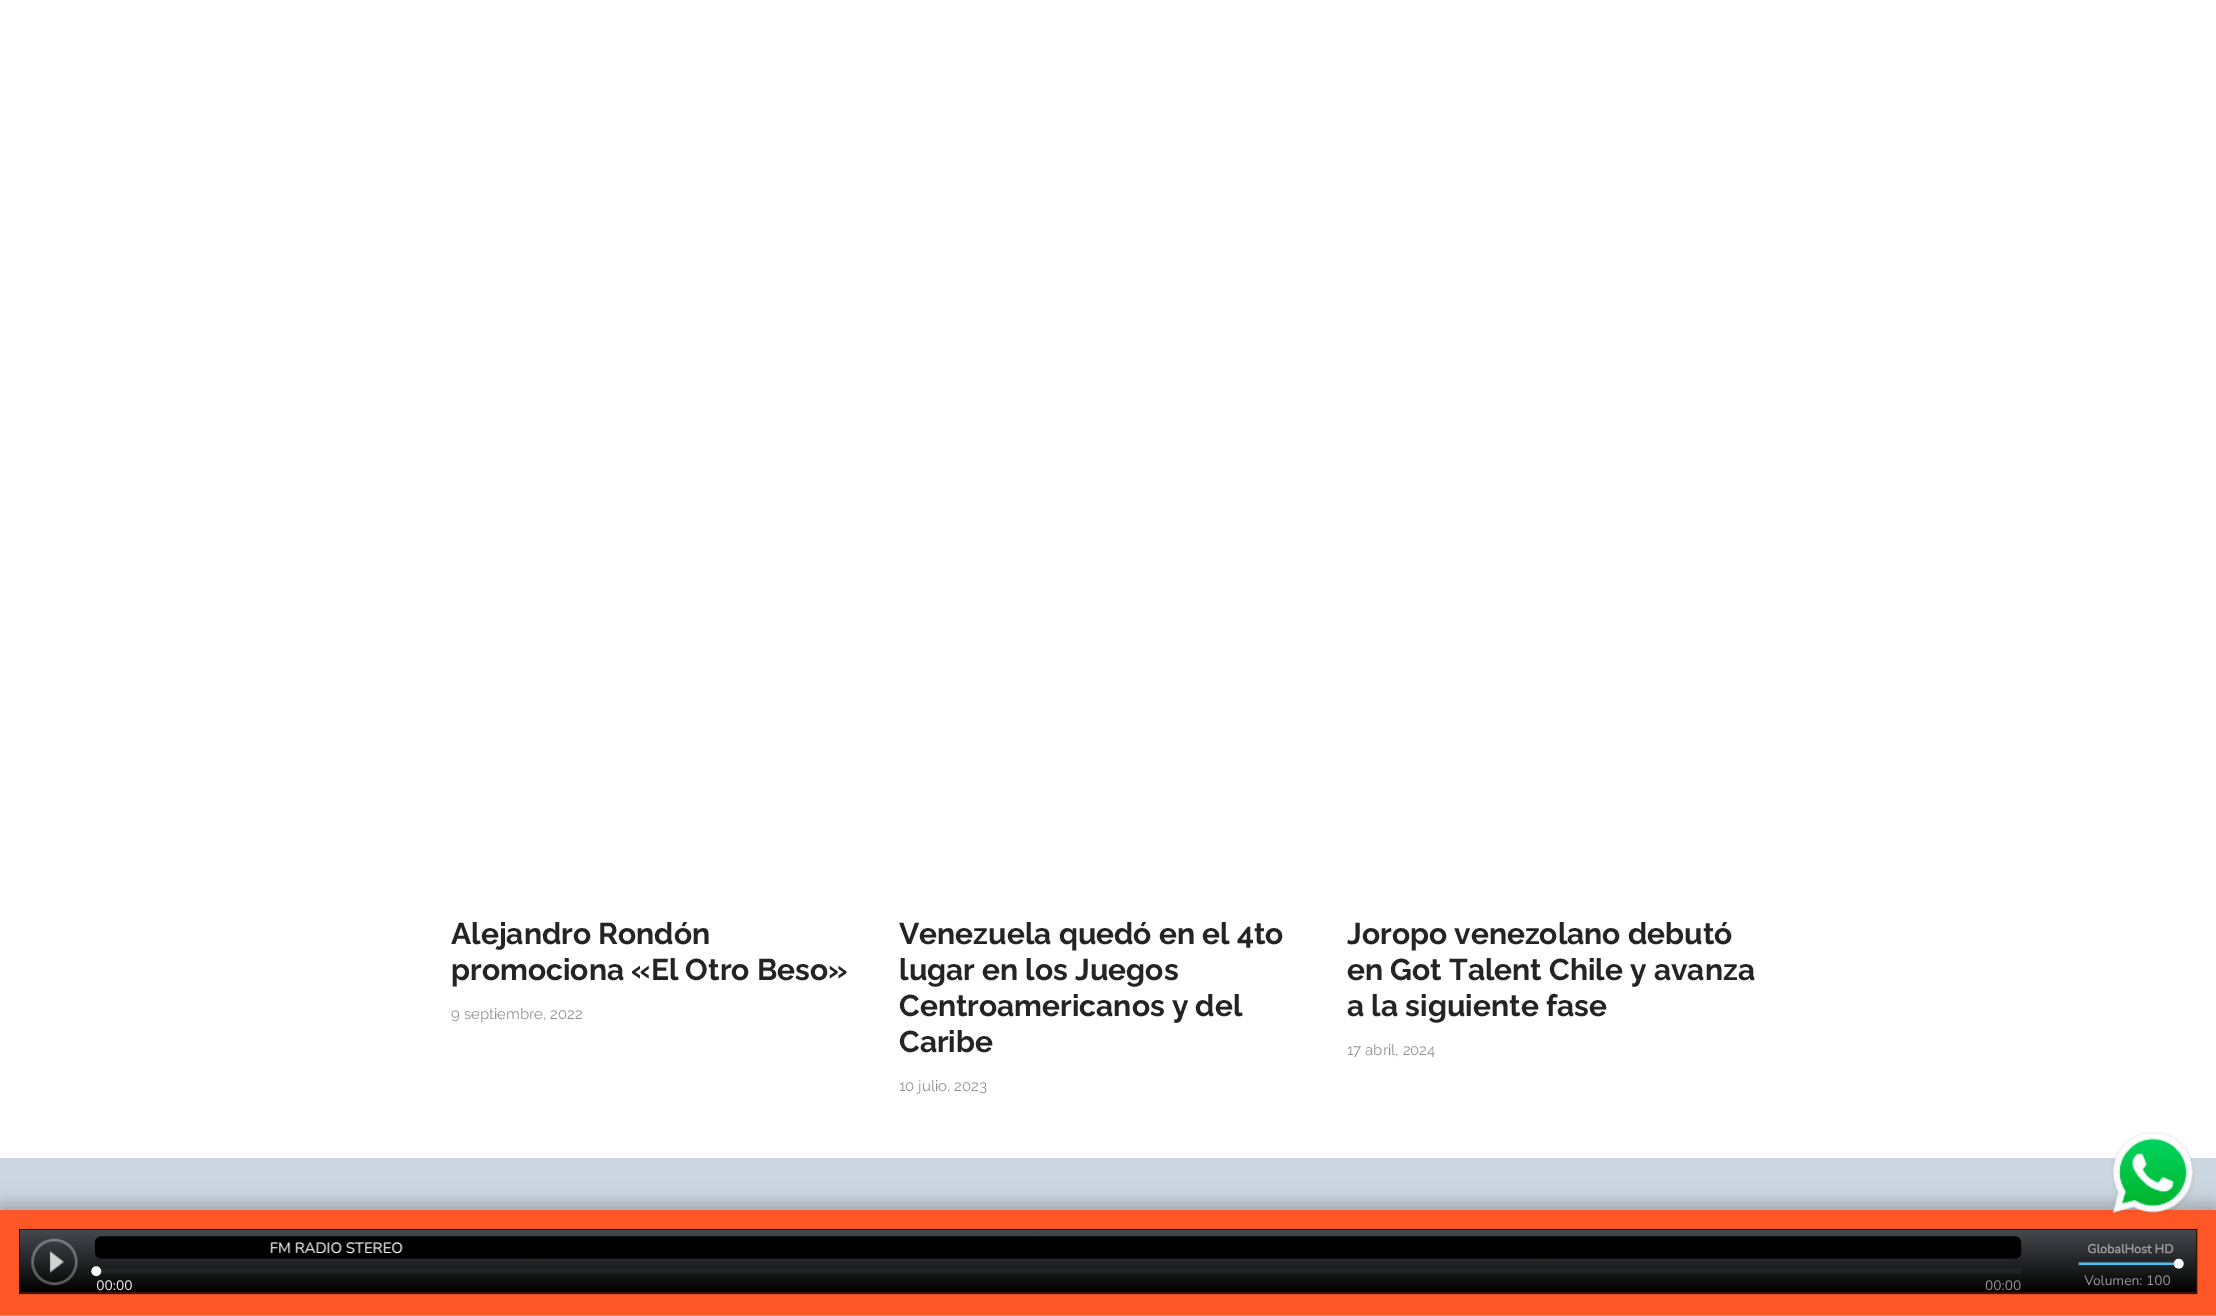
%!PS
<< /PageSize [2216 1316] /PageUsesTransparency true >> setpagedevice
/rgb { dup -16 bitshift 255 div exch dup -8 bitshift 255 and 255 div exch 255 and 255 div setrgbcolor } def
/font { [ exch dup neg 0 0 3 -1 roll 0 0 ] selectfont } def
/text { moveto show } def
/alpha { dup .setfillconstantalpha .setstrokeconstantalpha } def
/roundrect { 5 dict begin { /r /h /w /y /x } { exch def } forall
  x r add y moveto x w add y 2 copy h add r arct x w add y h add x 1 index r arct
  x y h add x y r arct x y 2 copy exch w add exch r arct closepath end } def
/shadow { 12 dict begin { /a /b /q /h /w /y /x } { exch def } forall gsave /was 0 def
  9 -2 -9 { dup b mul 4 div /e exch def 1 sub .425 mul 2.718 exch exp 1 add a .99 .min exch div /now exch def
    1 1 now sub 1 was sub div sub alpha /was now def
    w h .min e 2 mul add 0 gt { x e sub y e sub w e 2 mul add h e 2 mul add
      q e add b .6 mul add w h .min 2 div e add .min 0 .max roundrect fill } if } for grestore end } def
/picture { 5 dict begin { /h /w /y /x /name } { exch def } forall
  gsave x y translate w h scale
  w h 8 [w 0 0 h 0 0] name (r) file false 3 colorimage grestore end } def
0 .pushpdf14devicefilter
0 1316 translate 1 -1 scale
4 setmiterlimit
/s1 { /Raleway-Bold 30 font 16#242424 rgb } def
/s2 { /Raleway-Regular 15 font 16#909294 rgb } def
16#FFFFFF rgb
0 0 2216 1316 rectfill
s1
(Alejandro Rondón) 451 944 text
(promociona «El Otro Beso») 451 980 text
s2
(9 septiembre, 2022) 451 1019 text
s1
(Venezuela quedó en el 4to) 899 944 text
(lugar en los Juegos) 899 980 text
(Centroamericanos y del) 899 1016 text
(Caribe) 899 1052 text
s2
(10 julio, 2023) 899 1091 text
s1
(Joropo venezolano debutó) 1347 944 text
(en Got Talent Chile y avanza) 1347 980 text
(a la siguiente fase) 1347 1016 text
s2
(17 abril, 2024) 1347 1055 text
16#CDD7E1 rgb
0 1158 2216 52 rectfill
16#242424 rgb
0 1204 2216 106 0 10 0.3 shadow
16#FE5727 rgb
0 1210 2216 105 rectfill
(pic1.raw) 2111 1132 84 82 picture
16#FE8968 rgb
0 1315 2216 1 rectfill
(pic2.raw) 19 1229 2179 66 picture
.poppdf14devicefilter showpage
